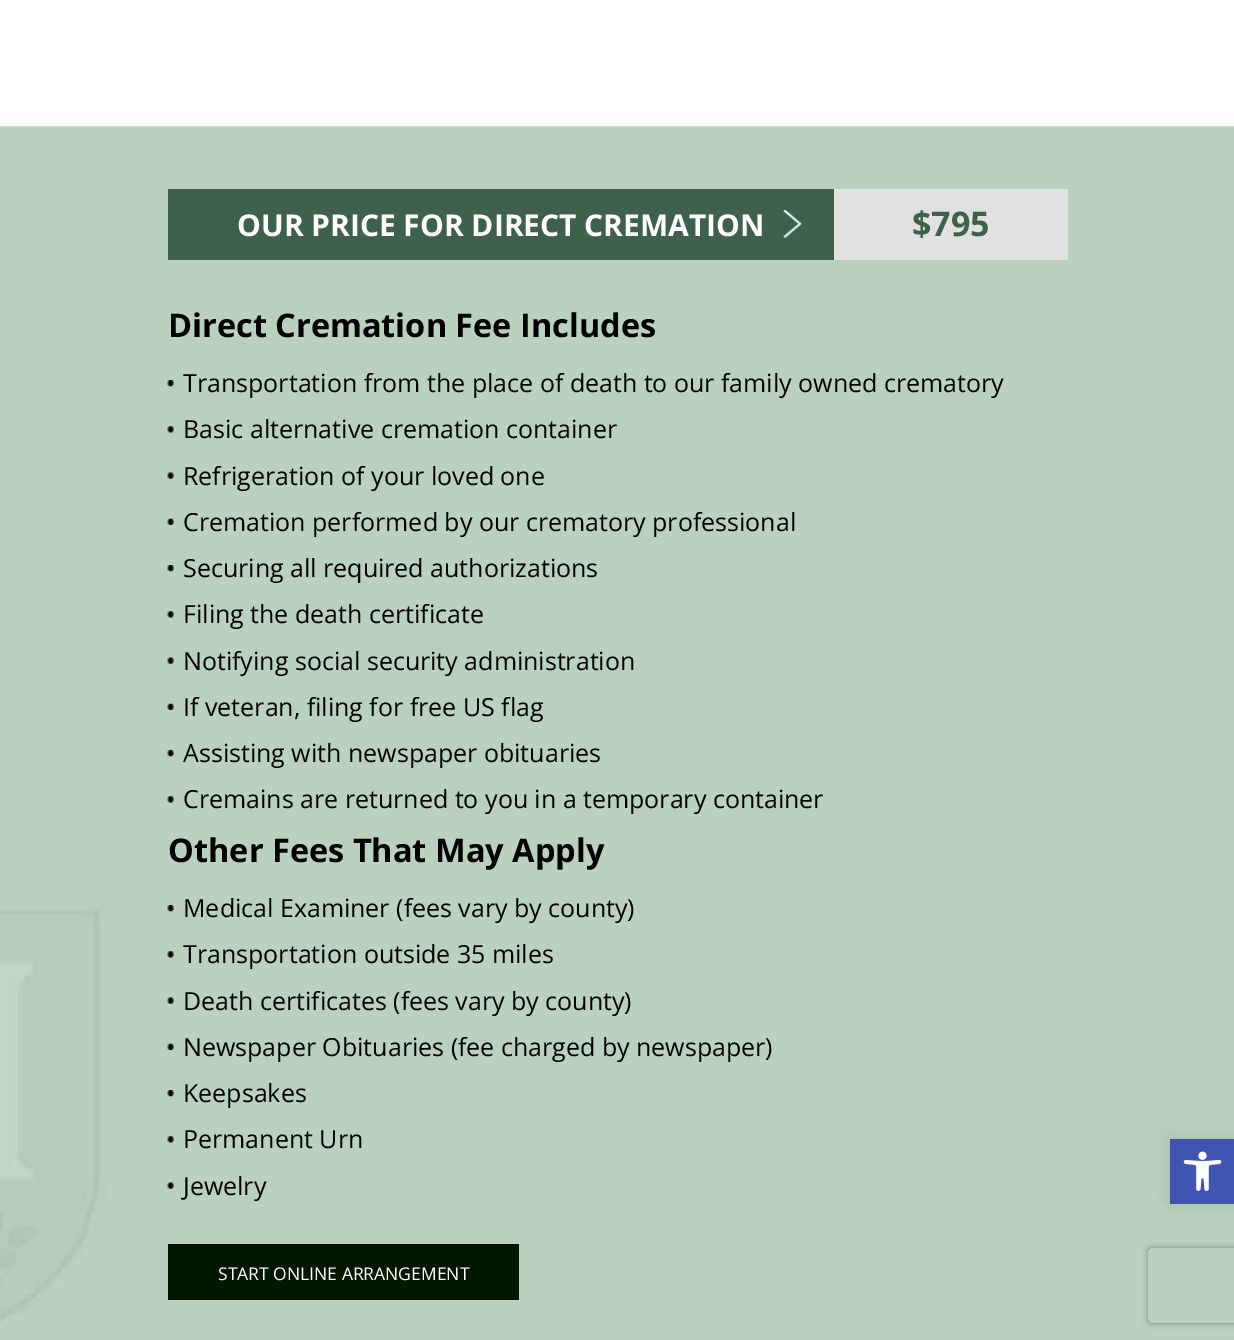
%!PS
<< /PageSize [1234 1340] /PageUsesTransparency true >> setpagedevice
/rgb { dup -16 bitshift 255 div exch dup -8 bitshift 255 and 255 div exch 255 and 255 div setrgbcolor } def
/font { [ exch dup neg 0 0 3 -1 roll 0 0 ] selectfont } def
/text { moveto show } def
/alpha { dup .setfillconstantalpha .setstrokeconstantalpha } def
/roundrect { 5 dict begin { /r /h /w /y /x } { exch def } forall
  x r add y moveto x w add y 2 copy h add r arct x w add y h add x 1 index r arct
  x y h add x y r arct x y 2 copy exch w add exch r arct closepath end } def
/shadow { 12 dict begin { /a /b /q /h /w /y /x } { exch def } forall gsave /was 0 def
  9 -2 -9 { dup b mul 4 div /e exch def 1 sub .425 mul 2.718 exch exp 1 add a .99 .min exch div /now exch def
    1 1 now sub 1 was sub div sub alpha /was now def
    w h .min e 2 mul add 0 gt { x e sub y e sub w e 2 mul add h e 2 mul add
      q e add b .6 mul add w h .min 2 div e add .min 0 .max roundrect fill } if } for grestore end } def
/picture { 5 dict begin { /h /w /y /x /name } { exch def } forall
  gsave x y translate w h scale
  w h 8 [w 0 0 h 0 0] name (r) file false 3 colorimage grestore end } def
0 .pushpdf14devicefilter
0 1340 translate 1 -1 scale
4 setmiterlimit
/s1 { /OpenSans-Bold 30 font 16#FFFFFF rgb } def
/s2 { /OpenSans-Bold 34 font 16#3E604D rgb } def
/s3 { /OpenSans-Bold 32.5 font 16#000000 rgb } def
/s4 { /OpenSans-Regular 25 font 16#000000 rgb } def
/s5 { /OpenSans-Regular 17.5 font 16#FFFFFF rgb } def
16#FFFFFF rgb
0 0 1234 1340 rectfill
(pic1.raw) 0 126 1234 1214 picture
16#3E604D rgb
168 189 666 71 rectfill
(pic2.raw) 783 210 19 28 picture
s1
(OUR PRICE FOR DIRECT CREMATION) 237 236 text
16#E1E1E1 rgb
834 189 234 71 rectfill
s2
($795) 912 236 text
s3
(Direct Cremation Fee Includes) 168 337 text
(pic3.raw) 167 380 7 7 picture
s4
(Transportation from the place of death to our family owned crematory) 183 392 text
(pic4.raw) 167 426 7 7 picture
(Basic alternative cremation container) 183 438 text
(pic5.raw) 167 472 7 7 picture
(Refrigeration of your loved one) 183 485 text
(pic6.raw) 167 518 7 7 picture
(Cremation performed by our crematory professional) 183 531 text
(pic3.raw) 167 565 7 7 picture
(Securing all required authorizations) 183 577 text
(pic4.raw) 167 611 7 7 picture
(Filing the death certificate) 183 623 text
(pic5.raw) 167 657 7 7 picture
(Notifying social security administration) 183 670 text
(pic6.raw) 167 703 7 7 picture
(If veteran, filing for free US flag) 183 716 text
(pic3.raw) 167 750 7 7 picture
(Assisting with newspaper obituaries) 183 762 text
(pic4.raw) 167 796 7 7 picture
(Cremains are returned to you in a temporary container) 183 808 text
s3
(Other Fees That May Apply) 168 862 text
(pic3.raw) 167 905 7 7 picture
s4
(Medical Examiner \(fees vary by county\)) 183 917 text
(pic4.raw) 167 951 7 7 picture
(Transportation outside 35 miles) 183 963 text
(pic5.raw) 167 997 7 7 picture
(Death certificates \(fees vary by county\)) 183 1010 text
(pic6.raw) 167 1043 7 7 picture
(Newspaper Obituaries \(fee charged by newspaper\)) 183 1056 text
(pic3.raw) 167 1090 7 7 picture
(Keepsakes) 183 1102 text
(pic4.raw) 167 1136 7 7 picture
(Permanent Urn) 183 1148 text
(pic5.raw) 167 1182 7 7 picture
(Jewelry) 183 1195 text
16#051701 rgb
168 1244 351 56 rectfill
s5
(START ONLINE ARRANGEMENT) 218 1280 text
16#000000 rgb
1170 1139 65 65 0 6 0.1 shadow
16#4054B2 rgb
1170 1139 64 65 rectfill
(pic7.raw) 1183 1151 39 40 picture
gsave
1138 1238 moveto 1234 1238 lineto 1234 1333 lineto 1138 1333 lineto closepath 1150.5 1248 moveto 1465.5 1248 lineto 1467 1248 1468 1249 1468 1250.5 curveto 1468 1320.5 lineto 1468 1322 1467 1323 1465.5 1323 curveto 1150.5 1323 lineto 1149 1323 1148 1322 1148 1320.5 curveto 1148 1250.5 lineto 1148 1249 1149 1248 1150.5 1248 curveto closepath eoclip newpath
16#808080 rgb
1148 1248 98 75 2.5 3 1 shadow
grestore
.poppdf14devicefilter showpage
